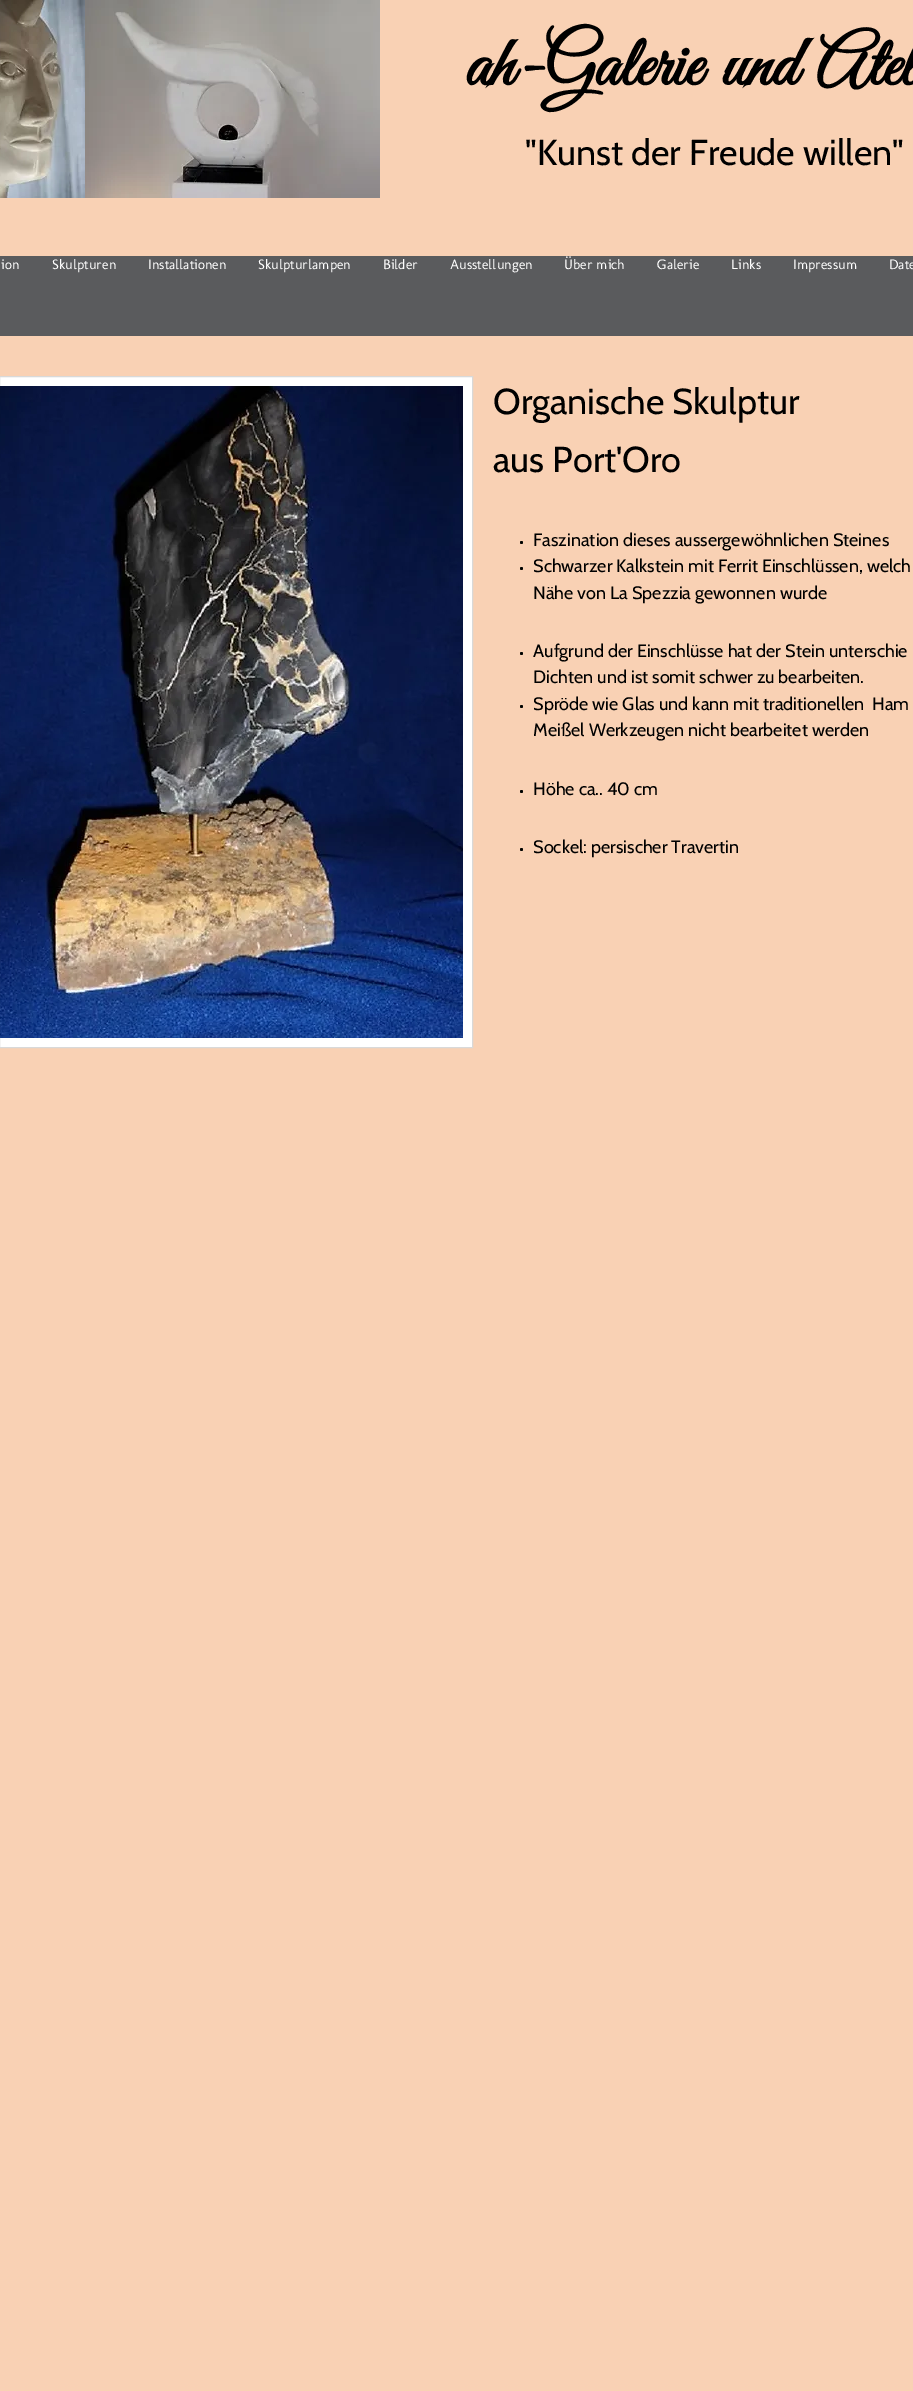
%!PS
<< /PageSize [913 2391] >> setpagedevice
/rgb { dup -16 bitshift 255 div exch dup -8 bitshift 255 and 255 div exch 255 and 255 div setrgbcolor } def
/font { [ exch dup neg 0 0 3 -1 roll 0 0 ] selectfont } def
/text { moveto show } def
/circle { newpath 0 360 arc closepath } def
/picture { 5 dict begin { /h /w /y /x /name } { exch def } forall
  gsave x y translate w h scale
  w h 8 [w 0 0 h 0 0] name (r) file false 3 colorimage grestore end } def
0 2391 translate 1 -1 scale
4 setmiterlimit
/s1 { /GreatVibes-Bold 72 font 16#000000 rgb } def
/s2 { /Cabin-Regular 36 font 16#000000 rgb } def
/s3 { /Molengo-Regular 14 font 16#FFFFFF rgb } def
/s4 { /Cabin-Regular 18 font 16#000000 rgb } def
16#F9D1B4 rgb
0 0 913 2391 rectfill
(pic1.raw) 0 0 85 198 picture
(pic2.raw) 85 0 295 198 picture
s1
(ah-Galerie und Atel) 465 85 text
s2
("Kunst der Freude willen") 525 165 text
16#5A5B5D rgb
0 256 913 80 rectfill
s3
(ion) 1 269 text
(Skulpturen) 52 269 text
(Installationen) 148 269 text
(Skulpturlampen) 258 269 text
(Bilder) 383 269 text
(Ausstellungen) 450 269 text
(Über mich) 564 269 text
(Galerie) 657 269 text
(Links) 731 269 text
(Impressum) 793 269 text
(Date) 889 269 text
-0.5 376.5 moveto 472.5 376.5 lineto 472.5 1047.5 lineto -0.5 1047.5 lineto closepath gsave fill grestore
16#D9D9D9 rgb
stroke
(pic3.raw) 0 386 463 652 picture
s2
(Organische Skulptur) 493 414 text
(aus Port'Oro) 493 472 text
16#000200 rgb
521.5 542.5 1.5 circle fill
s4
(Faszination dieses aussergewöhnlichen Steines) 533 546 text
16#000200 rgb
521.5 568.5 1.5 circle fill
s4
(Schwarzer Kalkstein mit Ferrit Einschlüssen, welch) 533 572 text
(Nähe von La Spezzia gewonnen wurde) 533 599 text
16#000200 rgb
521.5 653.5 1.5 circle fill
s4
(Aufgrund der Einschlüsse hat der Stein unterschie) 533 657 text
(Dichten und ist somit schwer zu bearbeiten.) 533 683 text
16#000200 rgb
521.5 706.5 1.5 circle fill
s4
(Spröde wie Glas und kann mit traditionellen  Ham) 533 710 text
(Meißel Werkzeugen nicht bearbeitet werden) 533 736 text
16#000200 rgb
521.5 791.5 1.5 circle fill
s4
(Höhe ca.. 40 cm) 533 795 text
16#000200 rgb
521.5 849.5 1.5 circle fill
s4
(Sockel: persischer Travertin) 533 853 text
showpage
